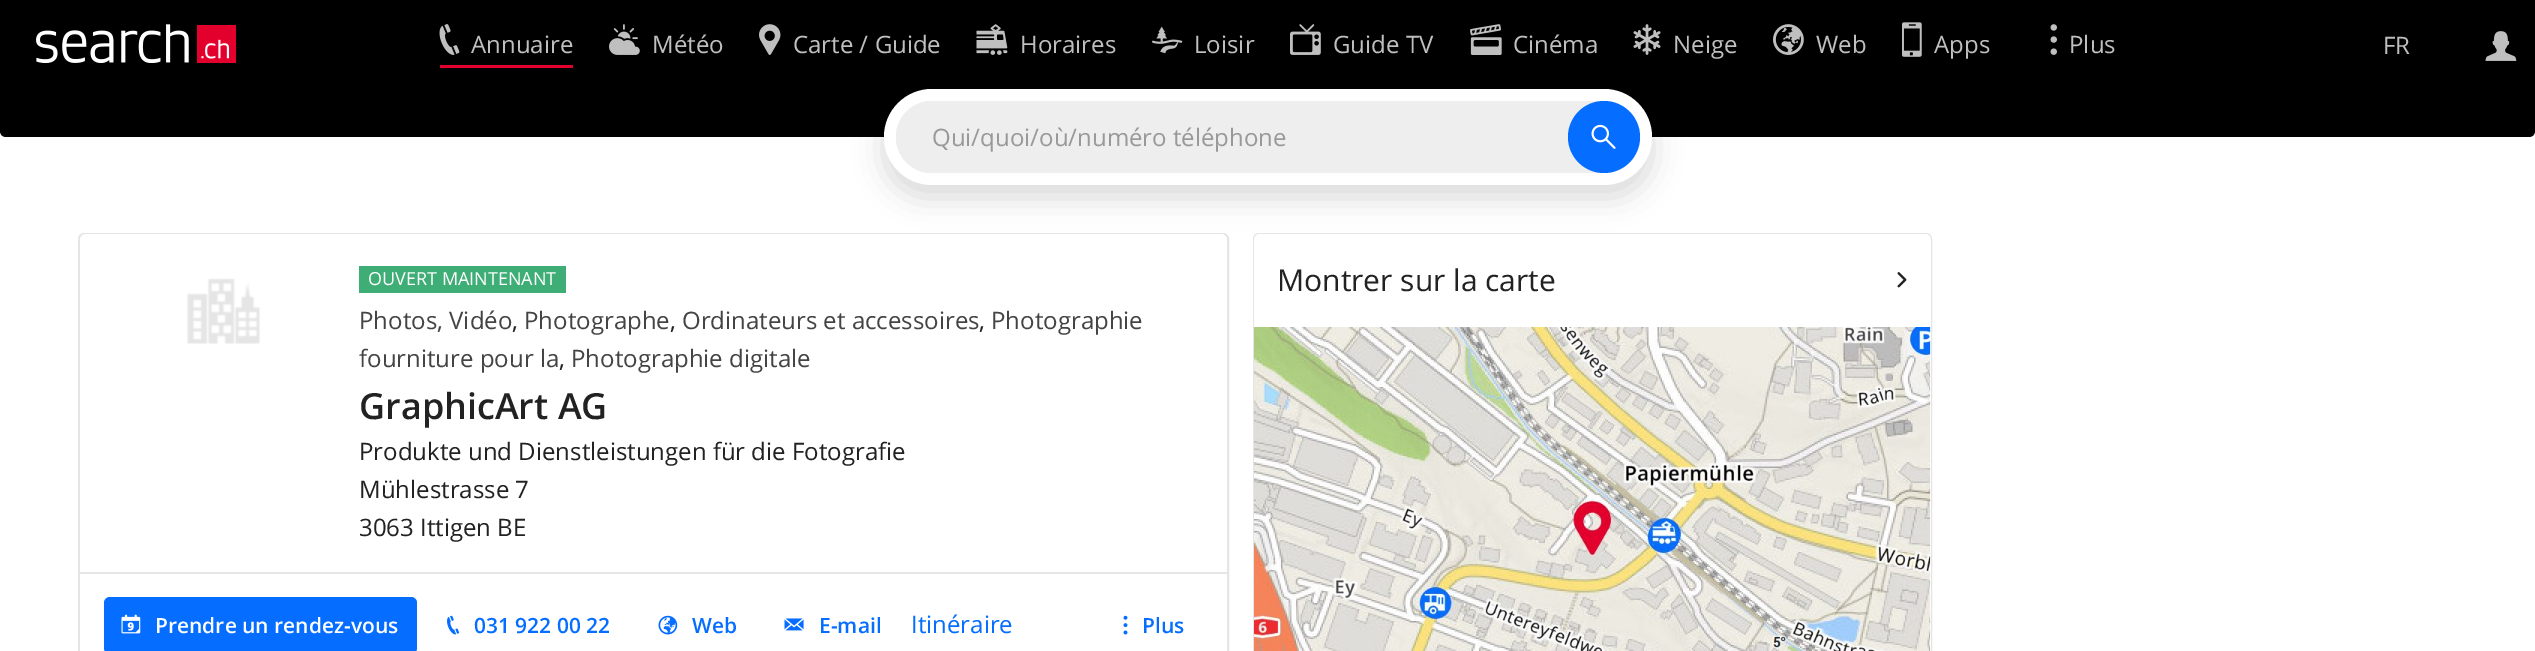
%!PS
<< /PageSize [2535 651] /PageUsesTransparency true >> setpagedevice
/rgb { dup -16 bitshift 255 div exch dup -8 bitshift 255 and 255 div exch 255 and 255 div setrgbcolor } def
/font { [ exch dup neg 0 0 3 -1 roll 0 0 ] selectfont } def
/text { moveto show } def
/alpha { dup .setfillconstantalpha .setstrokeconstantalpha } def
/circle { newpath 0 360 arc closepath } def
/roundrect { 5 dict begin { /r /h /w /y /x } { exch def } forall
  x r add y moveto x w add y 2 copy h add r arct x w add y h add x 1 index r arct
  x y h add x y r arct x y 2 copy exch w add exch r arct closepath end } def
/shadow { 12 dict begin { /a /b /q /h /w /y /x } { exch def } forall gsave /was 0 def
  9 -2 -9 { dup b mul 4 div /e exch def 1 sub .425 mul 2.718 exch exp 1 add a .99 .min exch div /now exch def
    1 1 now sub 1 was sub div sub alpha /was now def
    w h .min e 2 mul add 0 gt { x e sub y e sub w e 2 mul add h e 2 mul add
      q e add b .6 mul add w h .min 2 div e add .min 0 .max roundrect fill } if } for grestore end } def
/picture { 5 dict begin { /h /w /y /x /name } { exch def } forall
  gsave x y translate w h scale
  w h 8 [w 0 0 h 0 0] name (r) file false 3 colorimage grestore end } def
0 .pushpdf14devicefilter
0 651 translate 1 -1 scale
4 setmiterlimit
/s1 { /OpenSans-Regular 24 font 16#BFBFBF rgb } def
/s2 { /OpenSans-Regular 24 font 16#999999 rgb } def
/s3 { /OpenSans-Regular 18 font 16#FFFFFF rgb } def
/s4 { /OpenSans-Regular 24 font 16#444444 rgb } def
/s5 { /OpenSans-Regular 24 font 16#222222 rgb } def
/s6 { /OpenSans-SemiBold 36 font 16#222222 rgb } def
/s7 { /OpenSans-SemiBold 21 font 16#FFFFFF rgb } def
/s8 { /OpenSans-SemiBold 21 font 16#056DFF rgb } def
/s9 { /OpenSans-Regular 24 font 16#056DFF rgb } def
/s10 { /OpenSans-Regular 30 font 16#222222 rgb } def
16#FFFFFF rgb
0 0 2535 651 rectfill
16#000000 rgb
0 0 2535 89 rectfill
(pic1.raw) 36 24 200 39 picture
16#E4002C rgb
440 65 133 3 rectfill
(pic2.raw) 439 24 21 31 picture
s1
(Annuaire) 471 53 text
(pic3.raw) 609 24 31 31 picture
(Météo) 652 53 text
(pic4.raw) 759 24 22 31 picture
(Carte / Guide) 793 53 text
(pic5.raw) 976 24 32 31 picture
(Horaires) 1020 53 text
(pic6.raw) 1152 26 31 28 picture
(Loisir) 1194 53 text
(pic7.raw) 1290 24 31 31 picture
(Guide TV) 1333 53 text
(pic8.raw) 1470 24 32 31 picture
(Cinéma) 1513 53 text
(pic9.raw) 1633 24 28 31 picture
(Neige) 1673 53 text
(pic10.raw) 1773 24 31 31 picture
(Web) 1816 53 text
(pic11.raw) 1902 22 20 35 picture
(Apps) 1934 53 text
(pic12.raw) 2050 24 7 31 picture
(Plus) 2069 53 text
(FR) 2383 54 text
(pic13.raw) 2485 31 32 30 picture
16#000000 rgb
0 89 moveto 2535 89 lineto 2535 131 lineto 2535 134.5 2532.5 137 2529 137 curveto 6 137 lineto 2.5 137 0 134.5 0 131 curveto closepath fill
16#E5E5E5 rgb
2 setlinewidth
79 234 1149 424 5 roundrect stroke
gsave
80 234 1147 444 5 roundrect clip newpath
16#FFFFFF rgb
80 234 1147 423 6 roundrect fill
grestore
1254 234 677 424 5 roundrect stroke
gsave
1254 234 677 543 5 roundrect clip newpath
16#FFFFFF rgb
1254 234 677 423 6 roundrect fill
grestore
16#000000 rgb
884 101 768 96 48 15 0.15 shadow
16#FFFFFF rgb
884 89 768 96 48 roundrect fill
16#EEEEEE rgb
896 101 744 72 36 roundrect fill
896 101 672 72 36 roundrect fill
s2
(Qui/quoi/où/numéro téléphone) 932 146 text
16#056DFF rgb
1604 137 36 circle fill
(pic14.raw) 1591 124 25 25 picture
(pic15.raw) 187 278 73 66 picture
16#3EAD76 rgb
359 266 207 27 rectfill
s3
(OUVERT MAINTENANT) 368 285 text
s4
(Photos, Vidéo) 359 329 text
s5
(,) 512 329 text
s4
(Photographe) 524 329 text
s5
(,) 670 329 text
s4
(Ordinateurs et accessoires) 682 329 text
s5
(,) 979 329 text
s4
(Photographie) 991 329 text
(fourniture pour la) 359 367 text
s5
(,) 559 367 text
s4
(Photographie digitale) 571 367 text
s6
(GraphicArt AG) 359 419 text
s5
(Produkte und Dienstleistungen für die Fotografie) 359 460 text
(Mühlestrasse 7) 359 498 text
(3063 Ittigen BE) 359 536 text
16#E6E6E6 rgb
80 572 1147 2 rectfill
16#056DFF rgb
104 597 313 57 6 roundrect fill
(pic16.raw) 121 614 20 20 picture
s7
(Prendre un rendez-vous) 155 633 text
(pic17.raw) 447 615 12 20 picture
s8
(031 922 00 22) 474 633 text
(pic18.raw) 658 615 20 20 picture
(Web) 692 633 text
(pic19.raw) 784 618 20 13 picture
(E-mail) 819 633 text
s9
(Itinéraire) 911 633 text
(pic20.raw) 1123 615 5 20 picture
s8
(Plus) 1142 633 text
s10
(Montrer sur la carte) 1277 291 text
(pic21.raw) 1897 272 10 16 picture
(pic22.raw) 1254 327 677 324 picture
.poppdf14devicefilter showpage
